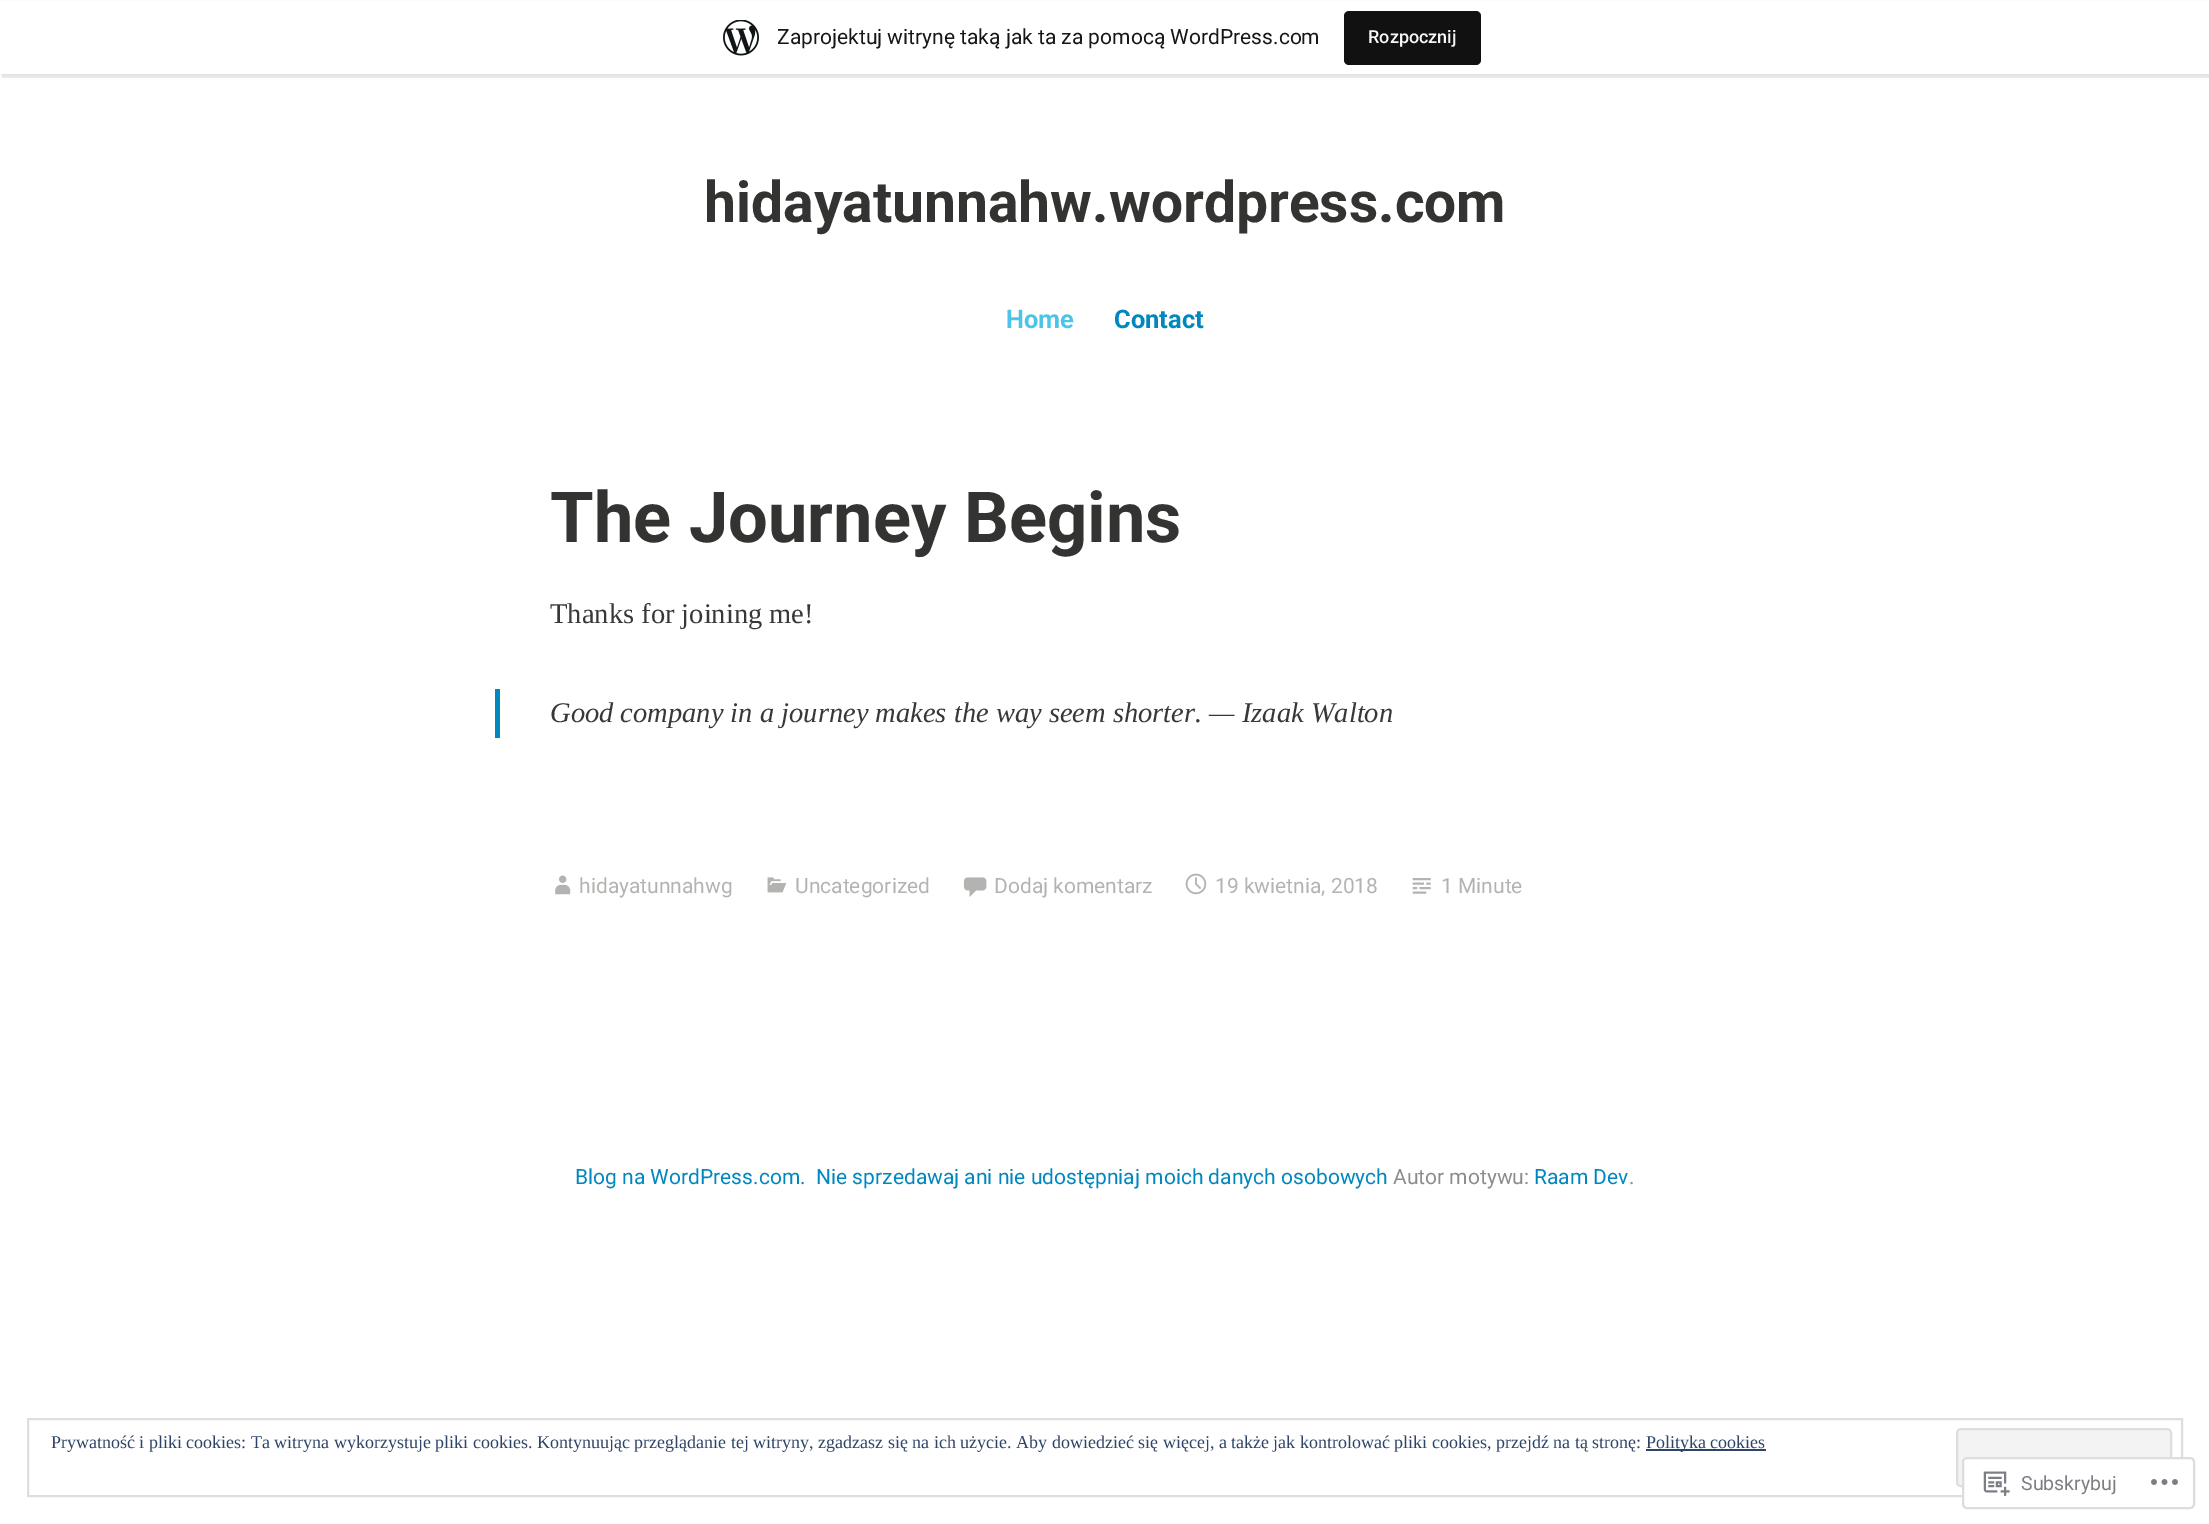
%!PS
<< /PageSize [2209 1524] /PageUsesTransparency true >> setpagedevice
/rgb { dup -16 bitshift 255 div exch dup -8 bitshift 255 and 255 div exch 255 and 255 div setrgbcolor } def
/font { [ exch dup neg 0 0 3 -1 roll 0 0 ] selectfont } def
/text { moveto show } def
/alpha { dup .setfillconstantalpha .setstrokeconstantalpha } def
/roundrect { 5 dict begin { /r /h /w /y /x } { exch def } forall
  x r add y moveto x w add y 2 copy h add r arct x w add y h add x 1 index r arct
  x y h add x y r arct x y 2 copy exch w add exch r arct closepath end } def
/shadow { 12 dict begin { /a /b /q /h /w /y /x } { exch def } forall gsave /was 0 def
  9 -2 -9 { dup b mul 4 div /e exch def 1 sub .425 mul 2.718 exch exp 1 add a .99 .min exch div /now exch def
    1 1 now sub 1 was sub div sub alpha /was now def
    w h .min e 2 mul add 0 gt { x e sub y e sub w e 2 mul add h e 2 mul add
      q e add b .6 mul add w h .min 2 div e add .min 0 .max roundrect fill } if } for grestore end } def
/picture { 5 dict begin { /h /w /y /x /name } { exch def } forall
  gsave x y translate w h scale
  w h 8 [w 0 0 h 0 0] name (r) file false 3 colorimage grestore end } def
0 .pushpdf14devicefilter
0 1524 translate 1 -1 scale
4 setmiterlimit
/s1 { /Roboto-Regular 21 font 16#171717 rgb } def
/s2 { /Roboto-Medium 18 font 16#F6F7F7 rgb } def
/s3 { /Roboto-Bold 57 font 16#333332 rgb } def
/s4 { /Roboto-Bold 25.5 font 16#4DC4E7 rgb } def
/s5 { /Roboto-Bold 25.5 font 16#0087BE rgb } def
/s6 { /Roboto-Bold 70.5 font 16#333332 rgb } def
/s7 { /LiberationSerif-Regular 28.5 font 16#383838 rgb } def
/s8 { /LiberationSerif-Italic 28.5 font 16#383838 rgb } def
/s9 { /Roboto-Regular 21 font 16#B3B3B1 rgb } def
/s10 { /Roboto-Regular 21 font 16#0087BE rgb } def
/s11 { /Roboto-Regular 21 font 16#8D8D8A rgb } def
/s12 { /LiberationSerif-Regular 18 font 16#2E4467 rgb } def
/s13 { /Roboto-Regular 19.5 font 16#7B7F84 rgb } def
16#FFFFFF rgb
0 0 2209 1524 rectfill
16#000000 rgb
0 2 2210 73 0 1.5 0.05 shadow
0.08 alpha
2 74 moveto 2 78 lineto 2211 78 lineto 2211 5 lineto 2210 5 lineto 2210 74 lineto closepath fill
1 alpha
16#FFFFFF rgb
0 1 2209 73 rectfill
(pic1.raw) 723 20 36 36 picture
s1
(Zaprojektuj witrynę taką jak ta za pomocą WordPress.com) 777 44 text
16#111111 rgb
1344 11 137 54 5 roundrect fill
s2
(Rozpocznij) 1368 43 text
s3
(hidayatunnahw.wordpress.com) 704 222 text
s4
(Home) 1006 328 text
s5
(Contact) 1114 328 text
s6
(The Journey Begins) 550 542 text
s7
(Thanks for joining me!) 550 623 text
16#0087BE rgb
495 689 5 49 rectfill
s8
(Good company in a journey makes the way seem shorter. — Izaak Walton) 550 722 text
(pic2.raw) 555 875 16 20 picture
s9
(hidayatunnahwg) 579 893 text
(pic3.raw) 767 877 20 16 picture
(Uncategorized) 795 893 text
(pic4.raw) 963 877 24 20 picture
(Dodaj komentarz) 994 893 text
(pic5.raw) 1185 873 22 22 picture
(19 kwietnia, 2018) 1215 893 text
(pic6.raw) 1412 878 19 16 picture
(1 Minute) 1441 893 text
s10
(Blog na WordPress.com.) 575 1184 text
(Nie sprzedawaj ani nie udostępniaj moich danych osobowych) 816 1184 text
s11
(Autor motywu:) 1393 1184 text
s10
(Raam Dev) 1534 1184 text
s11
(.) 1629 1184 text
16#DEDEDE rgb
2 setlinewidth
28 1419 2154 77 rectstroke
s12
(Prywatność i pliki cookies: Ta witryna wykorzystuje pliki cookies. Kontynuując przeglądanie tej witryny, zgadzasz się na ich użycie. Aby dowiedzieć się więcej, a także jak kontrolować pliki cookies, przejdź na tą stronę:) 51 1448 text
1646 1449 120 2 rectfill
(Polityka cookies) 1646 1448 text
16#F3F3F3 rgb
1957 1429 214 57 4 roundrect gsave fill grestore
16#DEDEDE rgb
stroke
0.98 alpha
16#FFFFFF rgb
1962 1457 233 52 5 roundrect fill
16#DCDCDE rgb
1963 1458 231 50 4 roundrect stroke
1 alpha
(pic7.raw) 1983 1471 27 25 picture
s13
(Subskrybuj) 2021 1490 text
(pic8.raw) 2151 1479 27 6 picture
.poppdf14devicefilter showpage
